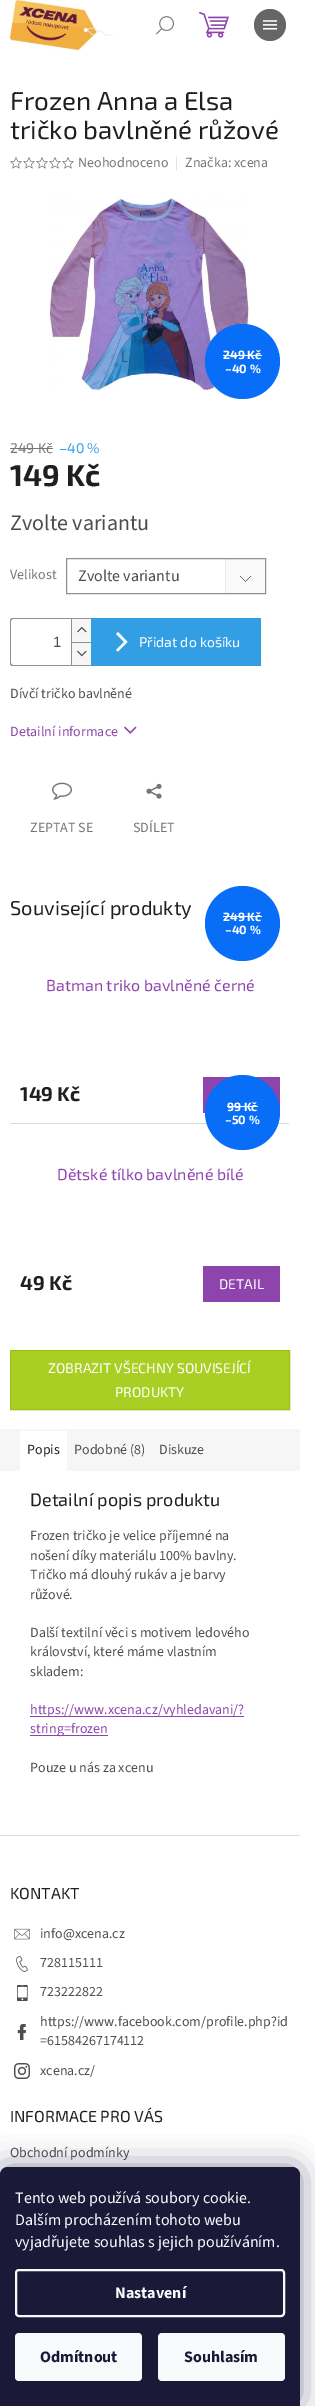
%!PS
<< /PageSize [315 2406] /PageUsesTransparency true >> setpagedevice
/rgb { dup -16 bitshift 255 div exch dup -8 bitshift 255 and 255 div exch 255 and 255 div setrgbcolor } def
/font { [ exch dup neg 0 0 3 -1 roll 0 0 ] selectfont } def
/text { moveto show } def
/alpha { dup .setfillconstantalpha .setstrokeconstantalpha } def
/circle { newpath 0 360 arc closepath } def
/roundrect { 5 dict begin { /r /h /w /y /x } { exch def } forall
  x r add y moveto x w add y 2 copy h add r arct x w add y h add x 1 index r arct
  x y h add x y r arct x y 2 copy exch w add exch r arct closepath end } def
/shadow { 12 dict begin { /a /b /q /h /w /y /x } { exch def } forall gsave /was 0 def
  9 -2 -9 { dup b mul 4 div /e exch def 1 sub .425 mul 2.718 exch exp 1 add a .99 .min exch div /now exch def
    1 1 now sub 1 was sub div sub alpha /was now def
    w h .min e 2 mul add 0 gt { x e sub y e sub w e 2 mul add h e 2 mul add
      q e add b .6 mul add w h .min 2 div e add .min 0 .max roundrect fill } if } for grestore end } def
/picture { 5 dict begin { /h /w /y /x /name } { exch def } forall
  gsave x y translate w h scale
  w h 8 [w 0 0 h 0 0] name (r) file false 3 colorimage grestore end } def
0 .pushpdf14devicefilter
0 2406 translate 1 -1 scale
4 setmiterlimit
/s1 { /Exo2-Regular 26 font 16#1F1F1F rgb } def
/s2 { /SourceSans3-Regular 14 font 16#767676 rgb } def
/s3 { /SourceSans3-Regular 14 font 16#DADADA rgb } def
/s4 { /SourceSans3-Regular 14 font 16#31547A rgb } def
/s5 { /Exo2-Bold 12 font 16#FFFFFF rgb } def
/s6 { /Exo2-Regular 14 font 16#767676 rgb } def
/s7 { /Exo2-Regular 14 font 16#329FE5 rgb } def
/s8 { /Exo2-Bold 30 font 16#1F1F1F rgb } def
/s9 { /SourceSans3-Regular 22 font 16#4D4D4D rgb } def
/s10 { /SourceSans3-Regular 16 font 16#4D4D4D rgb } def
/s11 { /LiberationSans-Regular 15 font 16#4D4D4D rgb } def
/s12 { /Exo2-Regular 14 font 16#FFFFFF rgb } def
/s13 { /SourceSans3-Regular 14 font 16#4D4D4D rgb } def
/s14 { /SourceSans3-Regular 14 font 16#8E44AD rgb } def
/s15 { /Exo2-Regular 20 font 16#1F1F1F rgb } def
/s16 { /Exo2-Regular 16 font 16#8E44AD rgb } def
/s17 { /Exo2-Bold 20 font 16#1F1F1F rgb } def
/s18 { /SourceSans3-Regular 14 font 16#1F1F1F rgb } def
/s19 { /Exo2-Regular 18 font 16#1F1F1F rgb } def
/s20 { /Exo2-Regular 16 font 16#1F1F1F rgb } def
/s21 { /SourceSans3-Regular 16 font 16#F8FAFB rgb } def
/s22 { /SourceSans3-Bold 16 font 16#F8FAFB rgb } def
/s23 { /SourceSans3-Bold 16 font 16#1A1937 rgb } def
16#FFFFFF rgb
0 0 315 2406 rectfill
(pic1.raw) 10 0 103 50 picture
(pic2.raw) 199 12 30 26 picture
(pic3.raw) 156 16 18 19 picture
16#666666 rgb
270 25 16 circle fill
(pic4.raw) 263 20 14 10 picture
s1
(Frozen Anna a Elsa) 10 110 text
(tričko bavlněné růžové) 10 139 text
(pic5.raw) 10 157 12 12 picture
(pic5.raw) 23 157 12 12 picture
(pic5.raw) 36 157 12 12 picture
(pic5.raw) 49 157 12 12 picture
(pic5.raw) 62 157 12 12 picture
s2
(Neohodnoceno) 78 167 text
s3
(|) 175 167 text
s2
(Značka: xcena) 185 167 text
(pic6.raw) 49 198 200 193 picture
s4
(L) 121 362 text
(.) 175 362 text
16#086DF7 rgb
242.5 361.5 37.5 circle fill
s5
(249 Kč) 223 359 text
223 355 39 1 rectfill
(–40 %) 225 373 text
s6
(249 Kč) 10 453 text
10 448 43 1 rectfill
s7
(–40 %) 59 453 text
s8
(149 Kč) 10 486 text
s9
(Zvolte variantu) 10 530 text
s2
(Velikost) 10 579 text
(pic7.raw) 225 559 40 34 picture
16#919191 rgb
66.5 558.5 199 35 rectstroke
s10
(Zvolte variantu) 78 581 text
16#919191 rgb
13 618 moveto 91 618 lineto 91 666 lineto 13 666 lineto 11 666 10 665 10 663 curveto 10 621 lineto 10 619 11 618 13 618 curveto closepath 13 619 moveto 91 619 lineto 91 665 lineto 13 665 lineto 12 665 11 664 11 663 curveto 11 621 lineto 11 620 12 619 13 619 curveto closepath eofill
s11
(1) 53 647 text
16#F6F6F6 rgb
72 619 19 23 rectfill
16#919191 rgb
71 619 1 23 rectfill
(pic8.raw) 77 626 10 7 picture
16#F6F6F6 rgb
72 643 19 22 rectfill
16#919191 rgb
71 642 20 1 rectfill
71 642 1 23 rectfill
(pic9.raw) 77 650 10 7 picture
16#329FE5 rgb
91 618 170 48 rectfill
16#FFFFFF rgb
118 651.5 moveto 116 650 lineto 124 642 lineto 116 634 lineto 118 632 lineto 127.5 642 lineto closepath fill
s12
(Přidat do košíku) 139 647 text
s13
(Dívčí tričko bavlněné) 10 698 text
s14
(Detailní informace) 10 736 text
(pic10.raw) 124 726 13 8 picture
(pic11.raw) 52 782 20 18 picture
s2
(ZEPTAT SE) 30 832 text
(pic12.raw) 146 783 16 16 picture
(SDÍLET) 133 832 text
s15
(Související produkty) 10 915 text
16#086DF7 rgb
242.5 923.5 37.5 circle fill
s5
(249 Kč) 223 921 text
223 916 39 1 rectfill
(–40 %) 225 934 text
s16
(Batman triko bavlněné černé) 46 991 text
s17
(149 Kč) 20 1101 text
16#8E44AD rgb
203 1077 77 36 rectfill
16#DADADA rgb
10 1123 280 1 rectfill
16#086DF7 rgb
242.5 1112.5 37.5 circle fill
s5
(99 Kč) 227 1111 text
227 1106 31 1 rectfill
(–50 %) 225 1124 text
s16
(Dětské tílko bavlněné bílé) 57 1180 text
s17
(49 Kč) 20 1290 text
16#8E44AD rgb
203 1266 77 36 rectfill
s12
(DETAIL) 219 1289 text
289 1123 1 1 rectfill
16#AACF24 rgb
10.5 1350.5 moveto 289.5 1350.5 lineto 289.5 1409.5 lineto 10.5 1409.5 lineto closepath gsave fill grestore
16#9BC20E rgb
stroke
s12
(ZOBRAZIT VŠECHNY SOUVISEJÍCÍ) 48 1373 text
(PRODUKTY) 115 1397 text
16#F6F6F6 rgb
0 1429 300 42 rectfill
16#FFFFFF rgb
20 1431 47 40 rectfill
s18
(Popis) 27 1454 text
s13
(Podobné \(8\)) 74 1454 text
(Diskuze) 159 1454 text
s19
(Detailní popis produktu) 30 1506 text
s13
(Frozen tričko je velice příjemné na) 30 1540 text
(nošení díky materiálu 100% bavlny.) 30 1560 text
(Tričko má dlouhý rukáv a je barvy) 30 1579 text
(růžové.) 30 1599 text
(Další textilní věci s motivem ledového) 30 1637 text
(království, které máme vlastním) 30 1656 text
(skladem:) 30 1676 text
16#8E44AD rgb
30 1716 214 1 rectfill
(https://www.xcena.cz/vyhledavani/?) 30 1714 text
30 1735 78 1 rectfill
(string=frozen) 30 1733 text
s13
(Pouze u nás za xcenu) 30 1772 text
16#DADADA rgb
0 1835 300 1 rectfill
s20
(KONTAKT) 10 1899 text
(pic13.raw) 14 1928 16 12 picture
s13
(info@xcena.cz) 40 1938 text
(pic14.raw) 16 1956 12 16 picture
(728115111) 40 1967 text
(pic15.raw) 17 1985 11 16 picture
(723222822) 40 1996 text
(https://www.facebook.com/profile.php?id) 40 2026 text
(pic16.raw) 17 2024 10 16 picture
(=61584267174112) 40 2045 text
(pic17.raw) 14 2063 16 16 picture
(xcena.cz/) 40 2075 text
s20
(INFORMACE PRO VÁS) 10 2122 text
s13
(Obchodní podmínky) 10 2157 text
16#1B1939 rgb
0 2167 300 239 8 15 0.5 shadow
16#1A1937 rgb
8 2167 moveto 292 2167 lineto 296.5 2167 300 2170.5 300 2175 curveto 300 2406 lineto 0 2406 lineto 0 2175 lineto 0 2170.5 3.5 2167 8 2167 curveto closepath fill
s21
(Tento web používá soubory cookie.) 15 2203 text
(Dalším procházením tohoto webu) 15 2225 text
(vyjadřujete souhlas s jejich používáním.) 15 2247 text
2 setlinewidth
16 2270 268 46 3 roundrect stroke
s22
(Nastavení) 115 2298 text
15 2333 127 48 4 roundrect fill
s23
(Odmítnout) 40 2362 text
16#F8FAFB rgb
158 2333 127 48 4 roundrect fill
s23
(Souhlasím) 184 2362 text
.poppdf14devicefilter showpage
